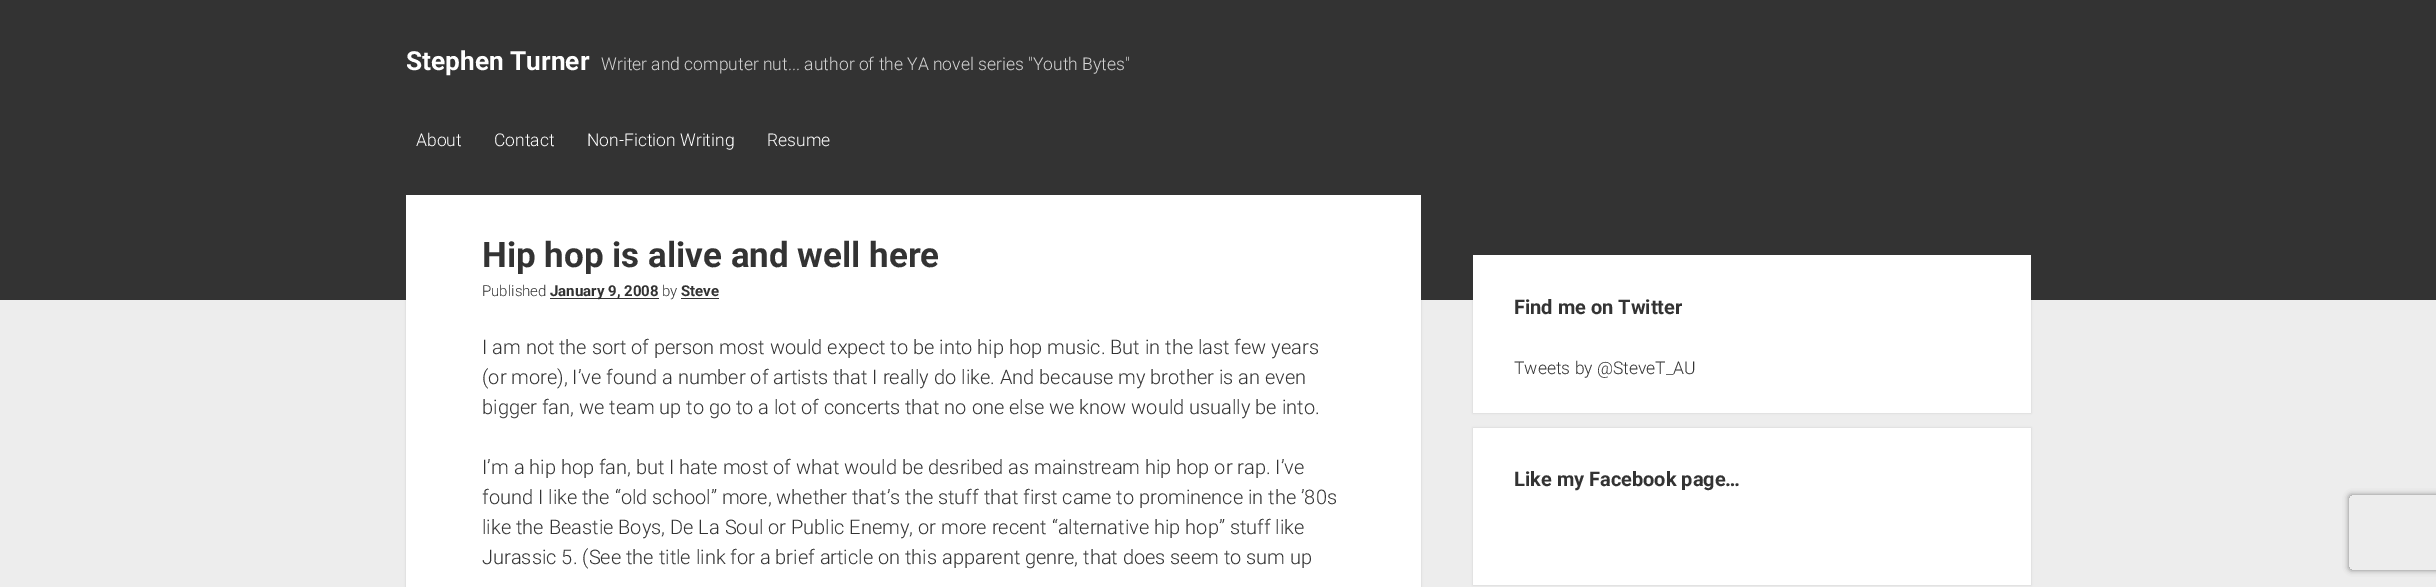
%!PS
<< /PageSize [2436 587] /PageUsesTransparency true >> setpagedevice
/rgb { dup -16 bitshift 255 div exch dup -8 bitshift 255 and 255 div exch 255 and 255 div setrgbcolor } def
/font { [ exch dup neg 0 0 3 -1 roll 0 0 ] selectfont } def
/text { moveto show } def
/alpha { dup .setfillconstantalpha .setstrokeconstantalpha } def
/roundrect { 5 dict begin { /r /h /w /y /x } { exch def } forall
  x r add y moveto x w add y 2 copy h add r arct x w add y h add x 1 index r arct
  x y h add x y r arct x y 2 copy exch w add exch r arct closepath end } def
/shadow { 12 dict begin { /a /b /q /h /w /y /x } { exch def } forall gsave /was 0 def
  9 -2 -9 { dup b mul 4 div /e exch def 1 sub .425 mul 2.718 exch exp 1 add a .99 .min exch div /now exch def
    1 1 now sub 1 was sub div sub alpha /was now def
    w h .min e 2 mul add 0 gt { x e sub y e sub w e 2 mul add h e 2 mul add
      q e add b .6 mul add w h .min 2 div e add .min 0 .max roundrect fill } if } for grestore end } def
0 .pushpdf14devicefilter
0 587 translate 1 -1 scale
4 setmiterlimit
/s1 { /Roboto-Bold 26.25 font 16#FFFFFF rgb } def
/s2 { /Roboto-Light 17.5 font 16#D4D4D4 rgb } def
/s3 { /Roboto-Light 17.5 font 16#FFFFFF rgb } def
/s4 { /Roboto-Bold 35 font 16#333333 rgb } def
/s5 { /Roboto-Light 15 font 16#333333 rgb } def
/s6 { /Roboto-Bold 15 font 16#333333 rgb } def
/s7 { /Roboto-Light 20 font 16#333333 rgb } def
/s8 { /Roboto-Bold 20 font 16#333333 rgb } def
/s9 { /Roboto-Light 17.5 font 16#333333 rgb } def
16#EDEDED rgb
0 0 2436 587 rectfill
16#333333 rgb
0 0 2436 300 rectfill
s1
(Stephen Turner) 406 70 text
s2
(Writer and computer nut... author of the YA novel series "Youth Bytes") 601 70 text
s3
(About) 416 146 text
(Contact) 494 146 text
(Non-Fiction Writing) 587 146 text
(Resume) 767 146 text
16#3A3A3A rgb
406 195 1015 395 0 1 0.2 shadow
16#FFFFFF rgb
406 195 1015 392 rectfill
s4
(Hip hop is alive and well here) 482 267 text
s5
(Published) 482 296 text
550 298 109 1 rectfill
s6
(January 9, 2008) 550 296 text
s5
(by) 662 296 text
s6
(Steve) 681 296 text
681 298 38 1 rectfill
s7
(I am not the sort of person most would expect to be into hip hop music. But in the last few years) 482 354 text
(\(or more\), I’ve found a number of artists that I really do like. And because my brother is an even) 482 384 text
(bigger fan, we team up to go to a lot of concerts that no one else we know would usually be into.) 482 414 text
(I’m a hip hop fan, but I hate most of what would be desribed as mainstream hip hop or rap. I’ve) 482 474 text
(found I like the “old school” more, whether that’s the stuff that first came to prominence in the ’80s) 482 504 text
(like the Beastie Boys, De La Soul or Public Enemy, or more recent “alternative hip hop” stuff like) 482 534 text
(Jurassic 5. \(See the title link for a brief article on this apparent genre, that does seem to sum up) 482 564 text
16#3A3A3A rgb
1473 255 558 158 0 1 0.2 shadow
16#FFFFFF rgb
1473 255 558 158 rectfill
s8
(Find me on Twitter) 1514 314 text
s9
(Tweets by @SteveT_AU) 1514 374 text
16#3A3A3A rgb
1473 428 558 157 0 1 0.2 shadow
16#FFFFFF rgb
1473 428 558 157 rectfill
s8
(Like my Facebook page…) 1514 486 text
gsave
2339 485 moveto 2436 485 lineto 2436 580 lineto 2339 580 lineto closepath 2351.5 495 moveto 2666.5 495 lineto 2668 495 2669 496 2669 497.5 curveto 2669 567.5 lineto 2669 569 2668 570 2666.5 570 curveto 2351.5 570 lineto 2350 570 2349 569 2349 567.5 curveto 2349 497.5 lineto 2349 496 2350 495 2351.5 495 curveto closepath eoclip newpath
16#808080 rgb
2349 495 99 75 2.5 3 1 shadow
grestore
.poppdf14devicefilter showpage
